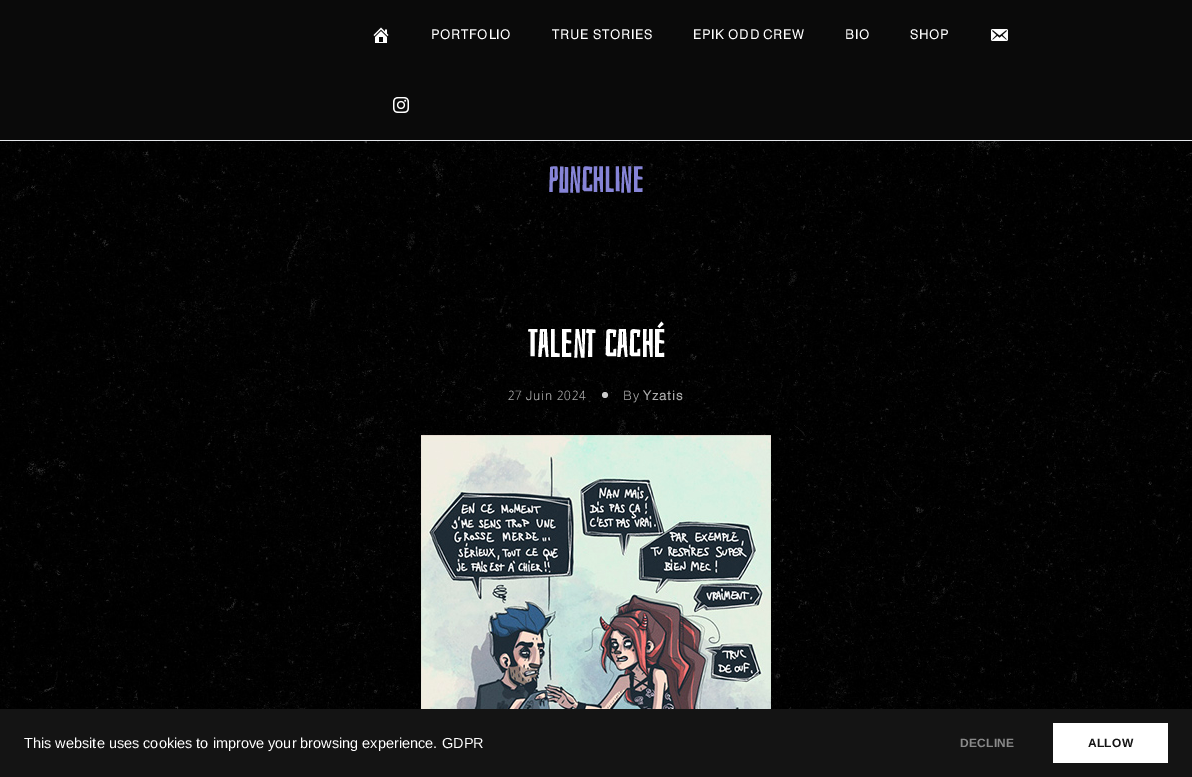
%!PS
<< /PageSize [1192 777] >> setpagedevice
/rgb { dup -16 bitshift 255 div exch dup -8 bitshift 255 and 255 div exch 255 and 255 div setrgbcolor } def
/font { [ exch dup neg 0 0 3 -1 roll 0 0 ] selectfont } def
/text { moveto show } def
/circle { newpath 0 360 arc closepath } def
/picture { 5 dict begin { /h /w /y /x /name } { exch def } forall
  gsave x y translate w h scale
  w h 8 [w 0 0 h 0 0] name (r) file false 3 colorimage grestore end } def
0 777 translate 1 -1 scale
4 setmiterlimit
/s1 { /Bahiana-Bold 35 font 16#8684D7 rgb } def
/s2 { /LiberationSans-Regular 14.5 font 16#FFFFFF rgb } def
16#FFFFFF rgb
0 0 1192 777 rectfill
(pic1.raw) 0 141 1192 568 picture
16#0A0A0A rgb
0 0 1192 140 rectfill
16#E4E6EA rgb
0 140 1192 1 rectfill
(pic2.raw) 373 27 16 16 picture
/Almarai-Bold 13 font
16#FFFFFF rgb
431 39 moveto 1 0 (PORTFOLIO) ashow
552 39 moveto 1 0 (TRUE STORIES) ashow
693 39 moveto 1 0 (EPIK ODD CREW) ashow
845 39 moveto 1 0 (BIO) ashow
910 39 moveto 1 0 (SHOP) ashow
(pic3.raw) 991 29 17 12 picture
(pic4.raw) 393 97 16 16 picture
s1
(punchline) 548 192 text
/Bahiana-Bold 38 font
16#FFFFFF rgb
527 357 moveto 1 0 32 (Talent caché) widthshow
/Almarai-Light 13 font
16#ADADAD rgb
508 400 moveto 1 0 (27 Juin 2024) ashow
16#C9C9C9 rgb
605 395 3 circle fill
16#ADADAD rgb
623 400 moveto 1 0 (By) ashow
/Almarai-Bold 13 font
643 400 moveto 1 0 (Yzatis) ashow
(pic5.raw) 421 435 350 274 picture
16#141414 rgb
0 709 1192 68 rectfill
s2
(This website uses cookies to improve your browsing experience.) 24 748 text
(GDPR) 442 748 text
/LiberationSans-Bold 12 font
16#8A8A8A rgb
960 747 moveto 0.25 0 (DECLINE) ashow
16#FFFFFF rgb
1053 723 115 40 rectfill
16#141414 rgb
1088 747 moveto 0.25 0 (ALLOW) ashow
showpage
